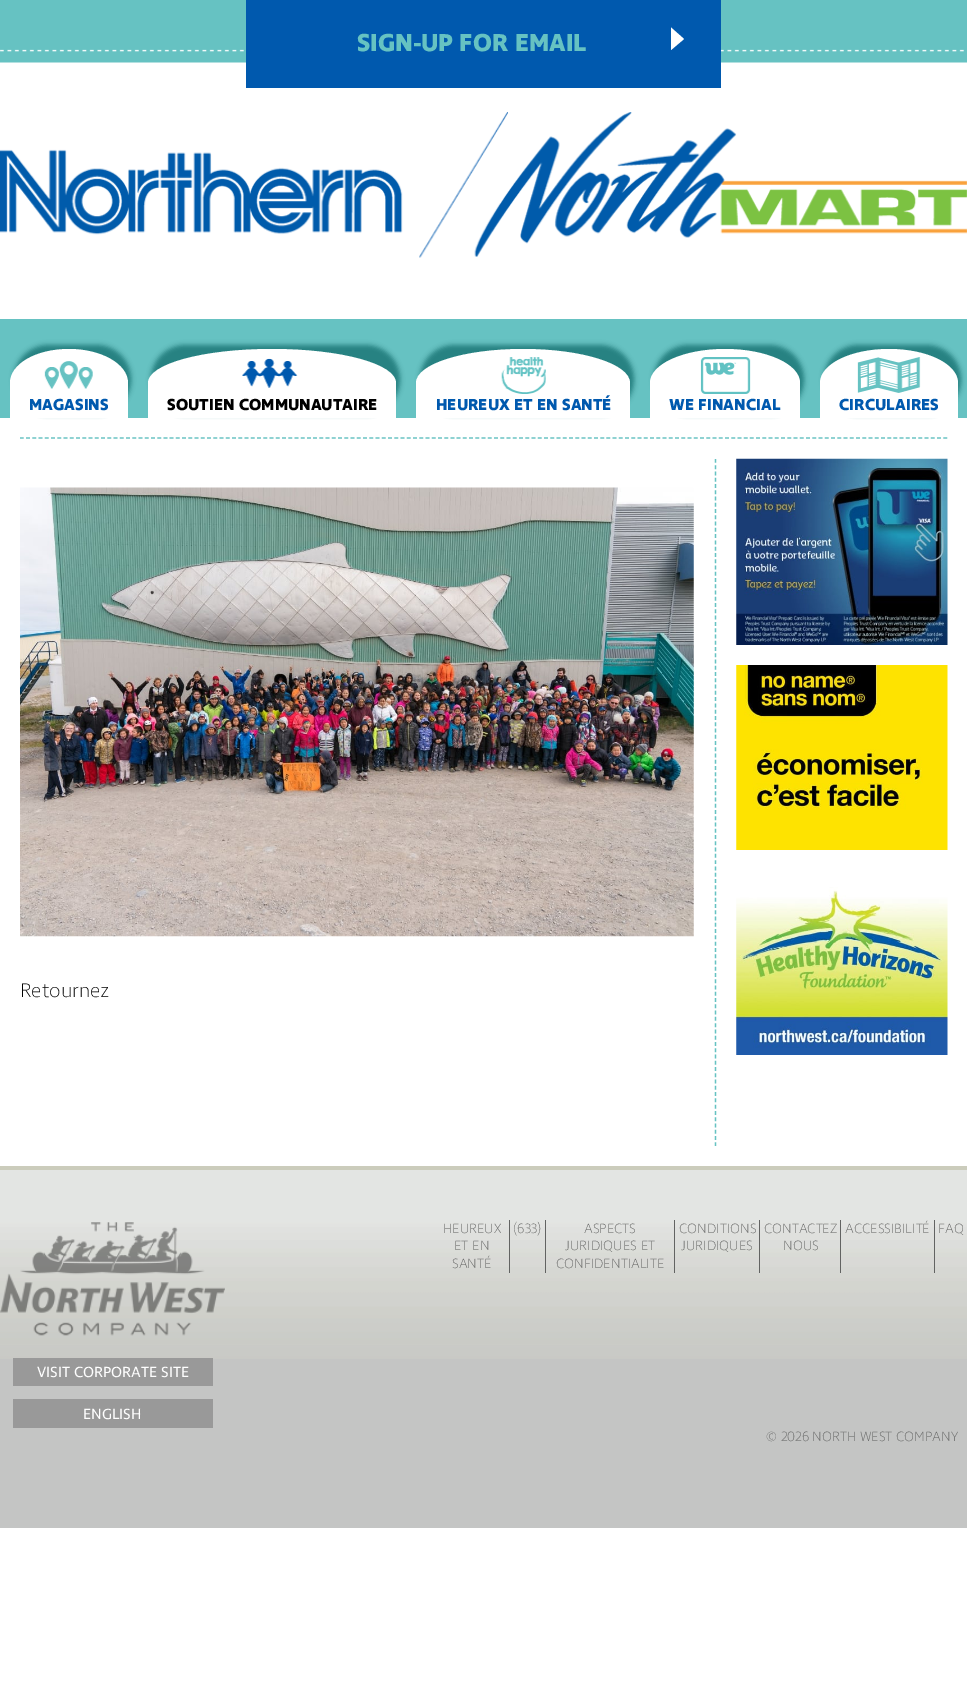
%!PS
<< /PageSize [967 1685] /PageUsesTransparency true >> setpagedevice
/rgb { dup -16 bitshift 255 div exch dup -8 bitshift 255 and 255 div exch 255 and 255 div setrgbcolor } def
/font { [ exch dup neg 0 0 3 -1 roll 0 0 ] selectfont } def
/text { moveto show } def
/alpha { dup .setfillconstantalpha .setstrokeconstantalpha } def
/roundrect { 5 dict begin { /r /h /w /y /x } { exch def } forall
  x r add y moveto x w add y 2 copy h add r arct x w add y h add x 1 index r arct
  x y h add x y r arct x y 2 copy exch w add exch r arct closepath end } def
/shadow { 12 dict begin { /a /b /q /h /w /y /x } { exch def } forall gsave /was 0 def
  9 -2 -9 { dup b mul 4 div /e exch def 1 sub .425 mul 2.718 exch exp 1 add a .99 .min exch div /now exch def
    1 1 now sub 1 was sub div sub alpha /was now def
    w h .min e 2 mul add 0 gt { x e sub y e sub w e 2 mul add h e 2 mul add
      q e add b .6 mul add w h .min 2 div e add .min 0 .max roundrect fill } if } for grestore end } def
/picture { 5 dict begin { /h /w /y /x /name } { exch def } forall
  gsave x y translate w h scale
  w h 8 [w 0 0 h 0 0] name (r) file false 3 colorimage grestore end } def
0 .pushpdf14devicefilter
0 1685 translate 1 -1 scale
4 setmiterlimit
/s1 { /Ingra-Bold 25 font 16#66C2C2 rgb } def
/s2 { /Ingra-Bold 16.25 font 16#0059AE rgb } def
/s3 { /Ingra-Bold 16.25 font 16#000000 rgb } def
/s4 { /Ingra-ExtraLight 20 font 16#000000 rgb } def
/s5 { /Ingra-ExtraLight 13.75 font 16#626362 rgb } def
/s6 { /Ingra-Regular 15 font 16#FFFFFF rgb } def
16#FFFFFF rgb
0 0 967 1685 rectfill
(pic1.raw) 0 0 967 63 picture
16#0059AE rgb
246 0 475 88 rectfill
s1
(SIGN-UP FOR EMAIL) 357 51 text
16#FFFFFF rgb
671 50 moveto 671 27.5 lineto 684 39 lineto closepath fill
(pic2.raw) 0 112 967 146 picture
16#66C2C2 rgb
0 319 967 99 rectfill
16#258080 rgb
14 345 117 69 34.5 2.5 1 shadow
16#FFFFFF rgb
69 349 moveto 101 349 128 364 128 383 curveto 128 418 lineto 10 418 lineto 10 383 lineto 10 364 36 349 69 349 curveto closepath fill
(pic3.raw) 44 361 49 28 picture
s2
(MAGASINS) 29 410 text
16#258080 rgb
151 345 249 69 34.5 2.5 1 shadow
16#FFFFFF rgb
272 349 moveto 341 349 396 364 396 383 curveto 396 418 lineto 148 418 lineto 148 383 lineto 148 364 203 349 272 349 curveto closepath fill
(pic4.raw) 242 358 56 30 picture
s3
(SOUTIEN COMMUNAUTAIRE) 167 410 text
16#258080 rgb
420 345 214 69 34.5 2.5 1 shadow
16#FFFFFF rgb
523 349 moveto 582 349 630 364 630 383 curveto 630 418 lineto 416 418 lineto 416 383 lineto 416 364 464 349 523 349 curveto closepath fill
(pic5.raw) 501 357 45 37 picture
s2
(HEUREUX ET EN SANTÉ) 436 410 text
16#258080 rgb
654 345 150 69 34.5 2.5 1 shadow
16#FFFFFF rgb
725 349 moveto 766 349 800 364 800 383 curveto 800 418 lineto 650 418 lineto 650 383 lineto 650 364 684 349 725 349 curveto closepath fill
(pic6.raw) 700 357 51 37 picture
s2
(WE FINANCIAL) 669 410 text
16#258080 rgb
824 345 137 69 34.5 2.5 1 shadow
16#FFFFFF rgb
889 349 moveto 927 349 958 364 958 383 curveto 958 418 lineto 820 418 lineto 820 383 lineto 820 364 851 349 889 349 curveto closepath fill
(pic7.raw) 857 357 64 36 picture
s2
(CIRCULAIRES) 839 410 text
16#66C2C2 rgb
1.2 setlinewidth
[3.75 2.49] 0 setdash
20 438 moveto 947.5 438 lineto stroke
[3.75 2.52] 0 setdash
715.5 459 moveto 715.5 1146 lineto stroke
(pic8.raw) 20 487 674 450 picture
s4
(Retournez) 20 997 text
(pic9.raw) 736 458 212 187 picture
(pic10.raw) 736 665 212 185 picture
(pic11.raw) 736 887 212 168 picture
16#C4C5C4 rgb
0 1226 967 302 rectfill
(pic12.raw) 0 1170 967 189 picture
16#CBCCBC rgb
0 1166 967 4 rectfill
(pic13.raw) 0 1222 225 114 picture
16#626362 rgb
509 1220 1 53 rectfill
s5
(HEUREUX) 443 1233 text
(ET EN) 454 1250 text
(SANTÉ) 452 1268 text
545 1220 1 53 rectfill
(\(633\)) 513 1233 text
674 1220 1 53 rectfill
(ASPECTS) 584 1233 text
(JURIDIQUES ET) 565 1250 text
(CONFIDENTIALITE) 556 1268 text
759 1220 1 53 rectfill
(CONDITIONS) 679 1233 text
(JURIDIQUES) 681 1250 text
840 1220 1 53 rectfill
(CONTACTEZ) 764 1233 text
(NOUS) 783 1250 text
934 1220 1 53 rectfill
(ACCESSIBILITÉ) 845 1233 text
(FAQ) 938 1233 text
16#999999 rgb
13 1358 200 28 rectfill
s6
(VISIT CORPORATE SITE) 37 1377 text
16#999999 rgb
13 1399 200 29 rectfill
s6
(ENGLISH) 83 1419 text
s5
(© 2026 NORTH WEST COMPANY) 766 1441 text
.poppdf14devicefilter showpage
